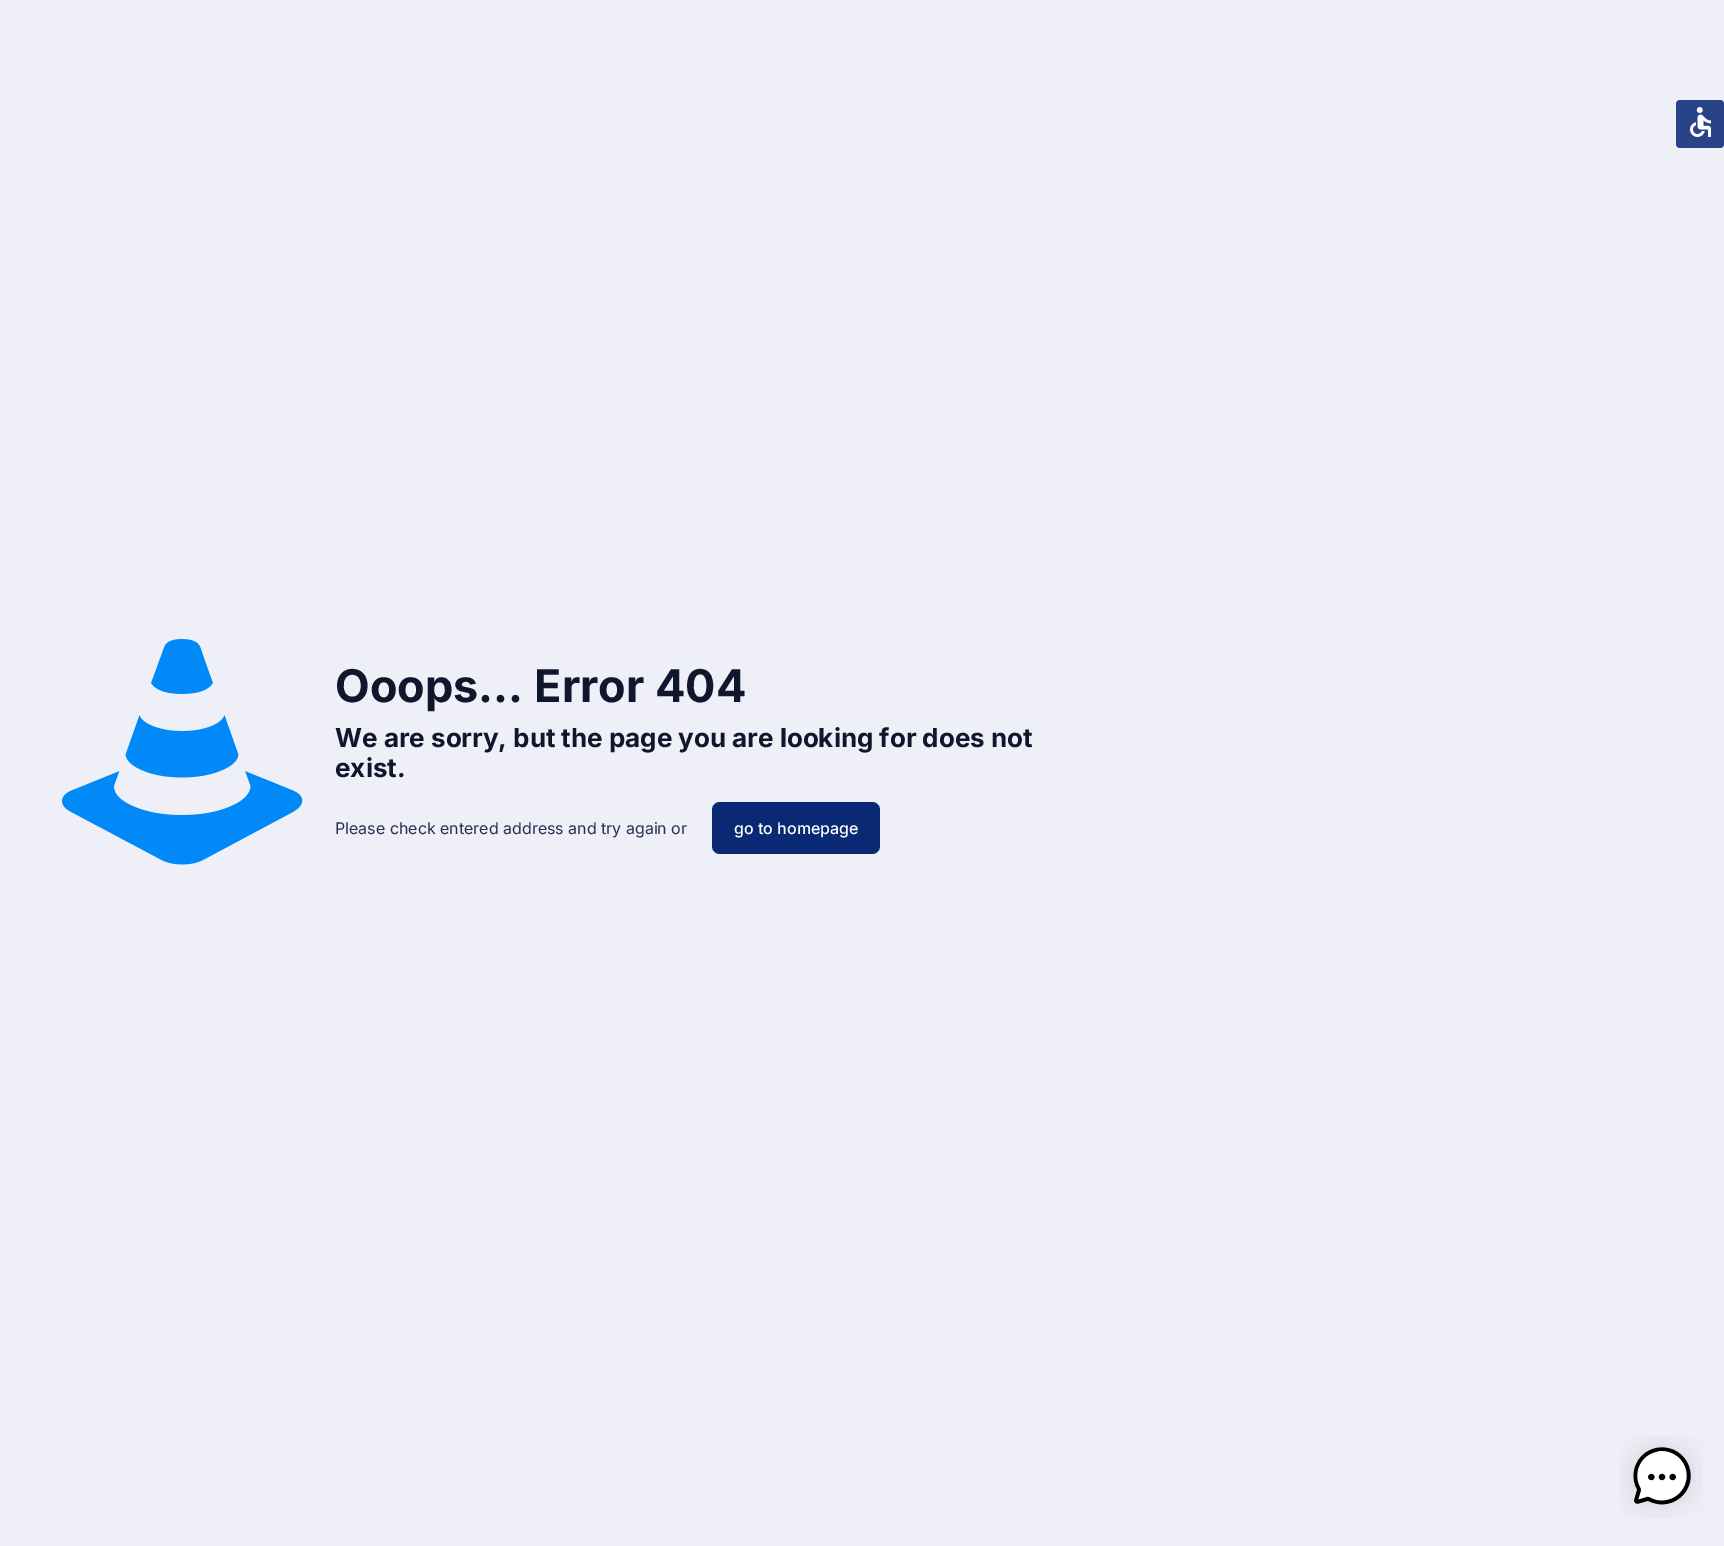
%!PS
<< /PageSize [1724 1546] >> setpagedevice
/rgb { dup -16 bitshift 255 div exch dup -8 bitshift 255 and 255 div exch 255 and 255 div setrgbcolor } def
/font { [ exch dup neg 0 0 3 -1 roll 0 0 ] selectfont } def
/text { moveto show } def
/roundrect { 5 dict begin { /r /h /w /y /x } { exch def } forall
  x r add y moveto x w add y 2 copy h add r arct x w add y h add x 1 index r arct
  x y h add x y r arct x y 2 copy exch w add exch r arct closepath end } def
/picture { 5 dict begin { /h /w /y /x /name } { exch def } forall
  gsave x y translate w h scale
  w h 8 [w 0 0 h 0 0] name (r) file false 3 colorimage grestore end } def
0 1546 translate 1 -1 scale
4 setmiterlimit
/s1 { /Inter-Bold 45 font 16#10162C rgb } def
/s2 { /Inter-Bold 26 font 16#10162C rgb } def
/s3 { /Inter-Regular 16 font 16#2A2E52 rgb } def
/s4 { /Inter-Medium 16 font 16#FFFFFF rgb } def
16#EFEFF8 rgb
0 0 1724 1546 rectfill
16#294388 rgb
1676 100 48 48 4 roundrect fill
(pic1.raw) 1690 107 21 30 picture
(pic2.raw) 62 639 241 226 picture
s1
(Ooops... Error 404) 335 702 text
s2
(We are sorry, but the page you are looking for does not) 335 747 text
(exist.) 335 777 text
s3
(Please check entered address and try again or) 335 834 text
16#092974 rgb
712 802 168 52 8 roundrect fill
s4
(go to homepage) 734 834 text
(pic3.raw) 1620 1435 83 83 picture
showpage
